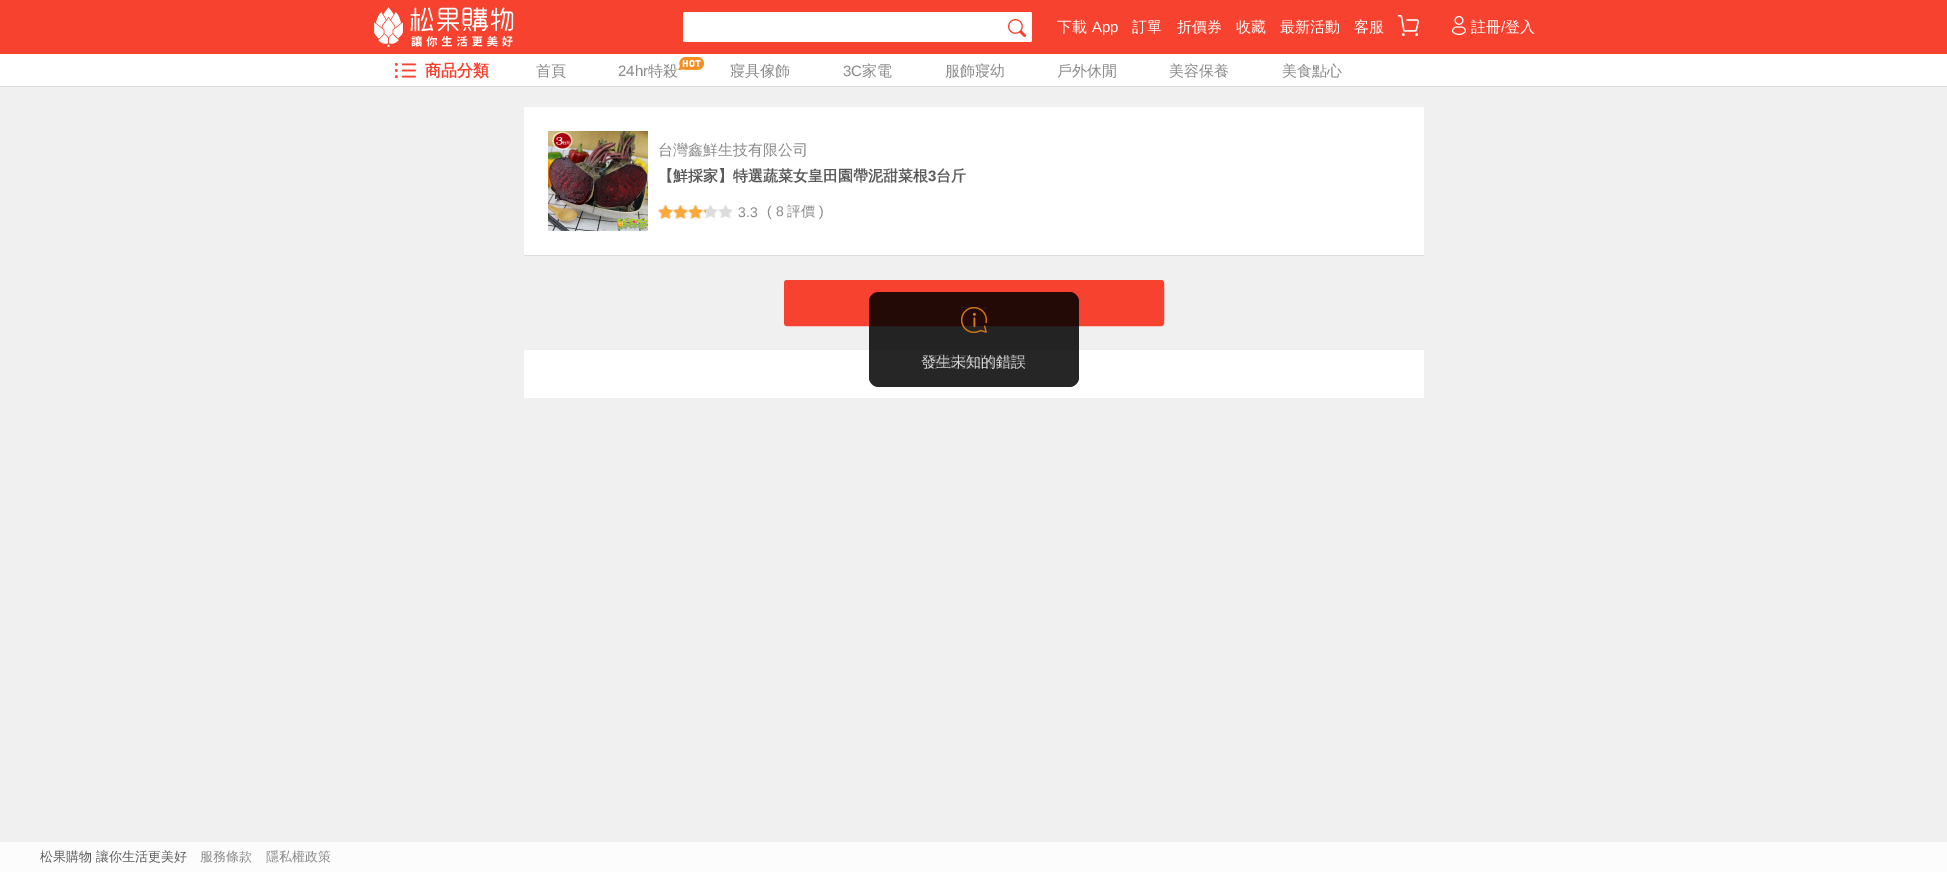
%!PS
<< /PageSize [1947 872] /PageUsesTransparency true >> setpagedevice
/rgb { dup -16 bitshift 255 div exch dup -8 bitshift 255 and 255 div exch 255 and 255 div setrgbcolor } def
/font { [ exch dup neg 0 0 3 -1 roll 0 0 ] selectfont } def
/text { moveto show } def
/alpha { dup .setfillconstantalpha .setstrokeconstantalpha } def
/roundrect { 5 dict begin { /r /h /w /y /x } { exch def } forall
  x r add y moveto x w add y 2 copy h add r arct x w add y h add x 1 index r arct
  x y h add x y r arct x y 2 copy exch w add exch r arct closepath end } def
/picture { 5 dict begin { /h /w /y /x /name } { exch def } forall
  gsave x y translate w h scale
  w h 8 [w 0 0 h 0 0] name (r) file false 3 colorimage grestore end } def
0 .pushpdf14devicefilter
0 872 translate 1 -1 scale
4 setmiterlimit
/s1 { /WenQuanYiZenHei-Medium 15 font 16#FFFFFF rgb } def
/s2 { /LiberationSans-Regular 15 font 16#FFFFFF rgb } def
/s3 { /WenQuanYiZenHei-Bold 16 font 16#F7422F rgb } def
/s4 { /WenQuanYiZenHei-Medium 15 font 16#8A8A8A rgb } def
/s5 { /LiberationSans-Regular 15 font 16#8A8A8A rgb } def
/s6 { /WenQuanYiZenHei-Bold 15 font 16#5A5A5A rgb } def
/s7 { /LiberationSans-Bold 15 font 16#5A5A5A rgb } def
/s8 { /LiberationSans-Regular 14 font 16#8A8A8A rgb } def
/s9 { /WenQuanYiZenHei-Medium 14 font 16#8A8A8A rgb } def
/s10 { /WenQuanYiZenHei-Medium 15 font 16#D4D4D4 rgb } def
/s11 { /WenQuanYiZenHei-Medium 13 font 16#5A5A5A rgb } def
/s12 { /WenQuanYiZenHei-Medium 13 font 16#8A8A8A rgb } def
16#F0F0F0 rgb
0 0 1947 872 rectfill
16#F7422F rgb
0 0 1947 54 rectfill
(pic1.raw) 374 7 140 40 picture
16#FFFFFF rgb
683 12 349 30 2 roundrect fill
(pic2.raw) 1008 19 18 18 picture
s1
(下載) 1057 32 text
s2
(App) 1092 32 text
s1
(訂單) 1132 32 text
(折價券) 1177 32 text
(收藏) 1236 32 text
(最新活動) 1280 32 text
(客服) 1354 32 text
(pic3.raw) 1398 15 21 21 picture
(pic4.raw) 1452 16 14 19 picture
(註冊) 1471 32 text
s2
(/) 1501 32 text
s1
(登入) 1505 32 text
0 54 1947 32 rectfill
16#DCDCDC rgb
0 86 1947 1 rectfill
(pic5.raw) 395 63 21 15 picture
s3
(商品分類) 425 76 text
s4
(首頁) 536 76 text
(pic6.raw) 678 57 26 13 picture
s5
(24hr) 618 76 text
s4
(特殺) 648 76 text
(寢具傢飾) 730 76 text
s5
(3C) 843 76 text
s4
(家電) 862 76 text
(服飾寢幼) 945 76 text
(戶外休閒) 1057 76 text
(美容保養) 1169 76 text
(美食點心) 1282 76 text
16#FFFFFF rgb
524 107 900 148 rectfill
16#DCDCDC rgb
524 255 900 1 rectfill
(pic7.raw) 548 131 100 100 picture
s4
(台灣鑫鮮生技有限公司) 658 155 text
s6
(【鮮採家】特選蔬菜女皇田園帶泥甜菜根) 658 181 text
s7
(3) 928 181 text
s6
(台斤) 936 181 text
(pic8.raw) 658 205 74 13 picture
(pic9.raw) 658 205 48 14 picture
s8
(3.3) 738 217 text
(\( 8) 767 216 text
s9
(評價) 787 216 text
s8
(\)) 819 216 text
16#F7422F rgb
784.5 280.5 379 45 2.5 roundrect gsave fill grestore
stroke
16#FFFFFF rgb
524 350 900 48 rectfill
0.6 alpha
16#000000 rgb
869 292 210 95 10 roundrect fill
1 alpha
(pic11.raw) 961 307 26 26 picture
s1
(系統發生錯誤) 929 367 text
0.63 alpha
16#000000 rgb
869 292 210 95 10 roundrect fill
1 alpha
(pic10.raw) 961 307 26 26 picture
s10
(發生未知的錯誤) 921 367 text
16#FCFCFC rgb
0 842 1947 30 rectfill
s11
(松果購物 讓你生活更美好) 40 861 text
s12
(服務條款) 200 861 text
(隱私權政策) 266 861 text
.poppdf14devicefilter showpage
